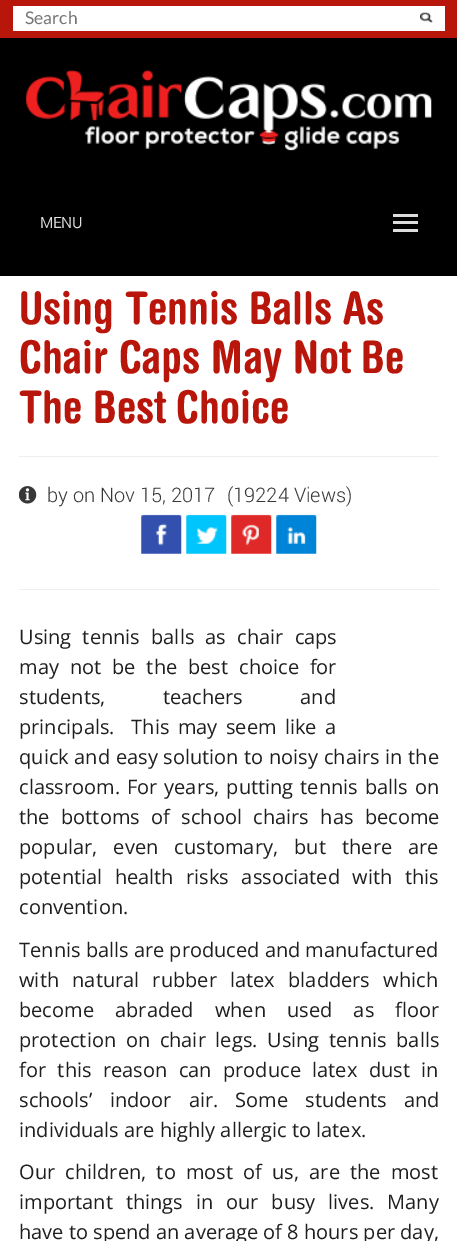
%!PS
<< /PageSize [457 1241] >> setpagedevice
/rgb { dup -16 bitshift 255 div exch dup -8 bitshift 255 and 255 div exch 255 and 255 div setrgbcolor } def
/font { [ exch dup neg 0 0 3 -1 roll 0 0 ] selectfont } def
/text { moveto show } def
/picture { 5 dict begin { /h /w /y /x /name } { exch def } forall
  gsave x y translate w h scale
  w h 8 [w 0 0 h 0 0] name (r) file false 3 colorimage grestore end } def
0 1241 translate 1 -1 scale
4 setmiterlimit
/s1 { /Lato-Regular 17.5 font 16#757575 rgb } def
/s2 { /Roboto-Bold 15 font 16#DDDDDD rgb } def
/s3 { /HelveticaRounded-Bold 45 font 16#B8160B rgb } def
/s4 { /Roboto-Light 20 font 16#373737 rgb } def
/s5 { /OpenSans-Regular 20 font 16#1F1F1F rgb } def
16#FFFFFF rgb
0 0 457 1241 rectfill
16#000000 rgb
0 38 457 238 rectfill
16#B8160B rgb
0 0 457 38 rectfill
16#FFFFFF rgb
13 6 432 25 rectfill
s1
(Search) 25 24 text
(pic1.raw) 420 12 13 11 picture
(pic2.raw) 26 69 406 82 picture
16#DDDDDD rgb
393 214 25 3 rectfill
s2
(MENU) 40 228 text
393 221 25 3 rectfill
393 229 25 3 rectfill
s3
(Using Tennis Balls As) 19 324 text
(Chair Caps May Not Be) 19 373 text
(The Best Choice) 19 423 text
16#EEEEEE rgb
19 456 420 1 rectfill
(pic3.raw) 19 486 18 18 picture
s4
(by on Nov 15, 2017) 47 502 text
(\(19224 Views\)) 227 502 text
(pic4.raw) 141 514 41 40 picture
(pic5.raw) 186 514 41 40 picture
(pic6.raw) 231 514 41 40 picture
(pic7.raw) 276 514 41 40 picture
16#EEEEEE rgb
19 589 420 1 rectfill
/OpenSans-Regular 20 font
16#1F1F1F rgb
19 644 moveto 6 0 32 (Using tennis balls as chair caps) widthshow
19 674 moveto 5.75 0 32 (may not be the best choice for) widthshow
19 704 moveto 52 0 32 (students, teachers and) widthshow
19 734 moveto 3.25 0 32 (principals.  This may seem like a) widthshow
19 764 moveto 0.5 0 32 (quick and easy solution to noisy chairs in the) widthshow
19 794 moveto 1.75 0 32 (classroom. For years, putting tennis balls on) widthshow
19 824 moveto 6.25 0 32 (the bottoms of school chairs has become) widthshow
19 854 moveto 11 0 32 (popular, even customary, but there are) widthshow
19 884 moveto 7.25 0 32 (potential health risks associated with this) widthshow
(convention.) 19 914 text
(Tennis balls are produced and manufactured) 19 957 text
19 987 moveto 8 0 32 (with natural rubber latex bladders which) widthshow
19 1017 moveto 16 0 32 (become abraded when used as floor) widthshow
19 1047 moveto 4.5 0 32 (protection on chair legs. Using tennis balls) widthshow
19 1077 moveto 6.25 0 32 (for this reason can produce latex dust in) widthshow
19 1107 moveto 12 0 32 (schools’ indoor air. Some students and) widthshow
(individuals are highly allergic to latex.) 19 1137 text
19 1179 moveto 5 0 32 (Our children, to most of us, are the most) widthshow
19 1209 moveto 7.75 0 32 (important things in our busy lives. Many) widthshow
(have to spend an average of 8 hours per day,) 19 1239 text
showpage
